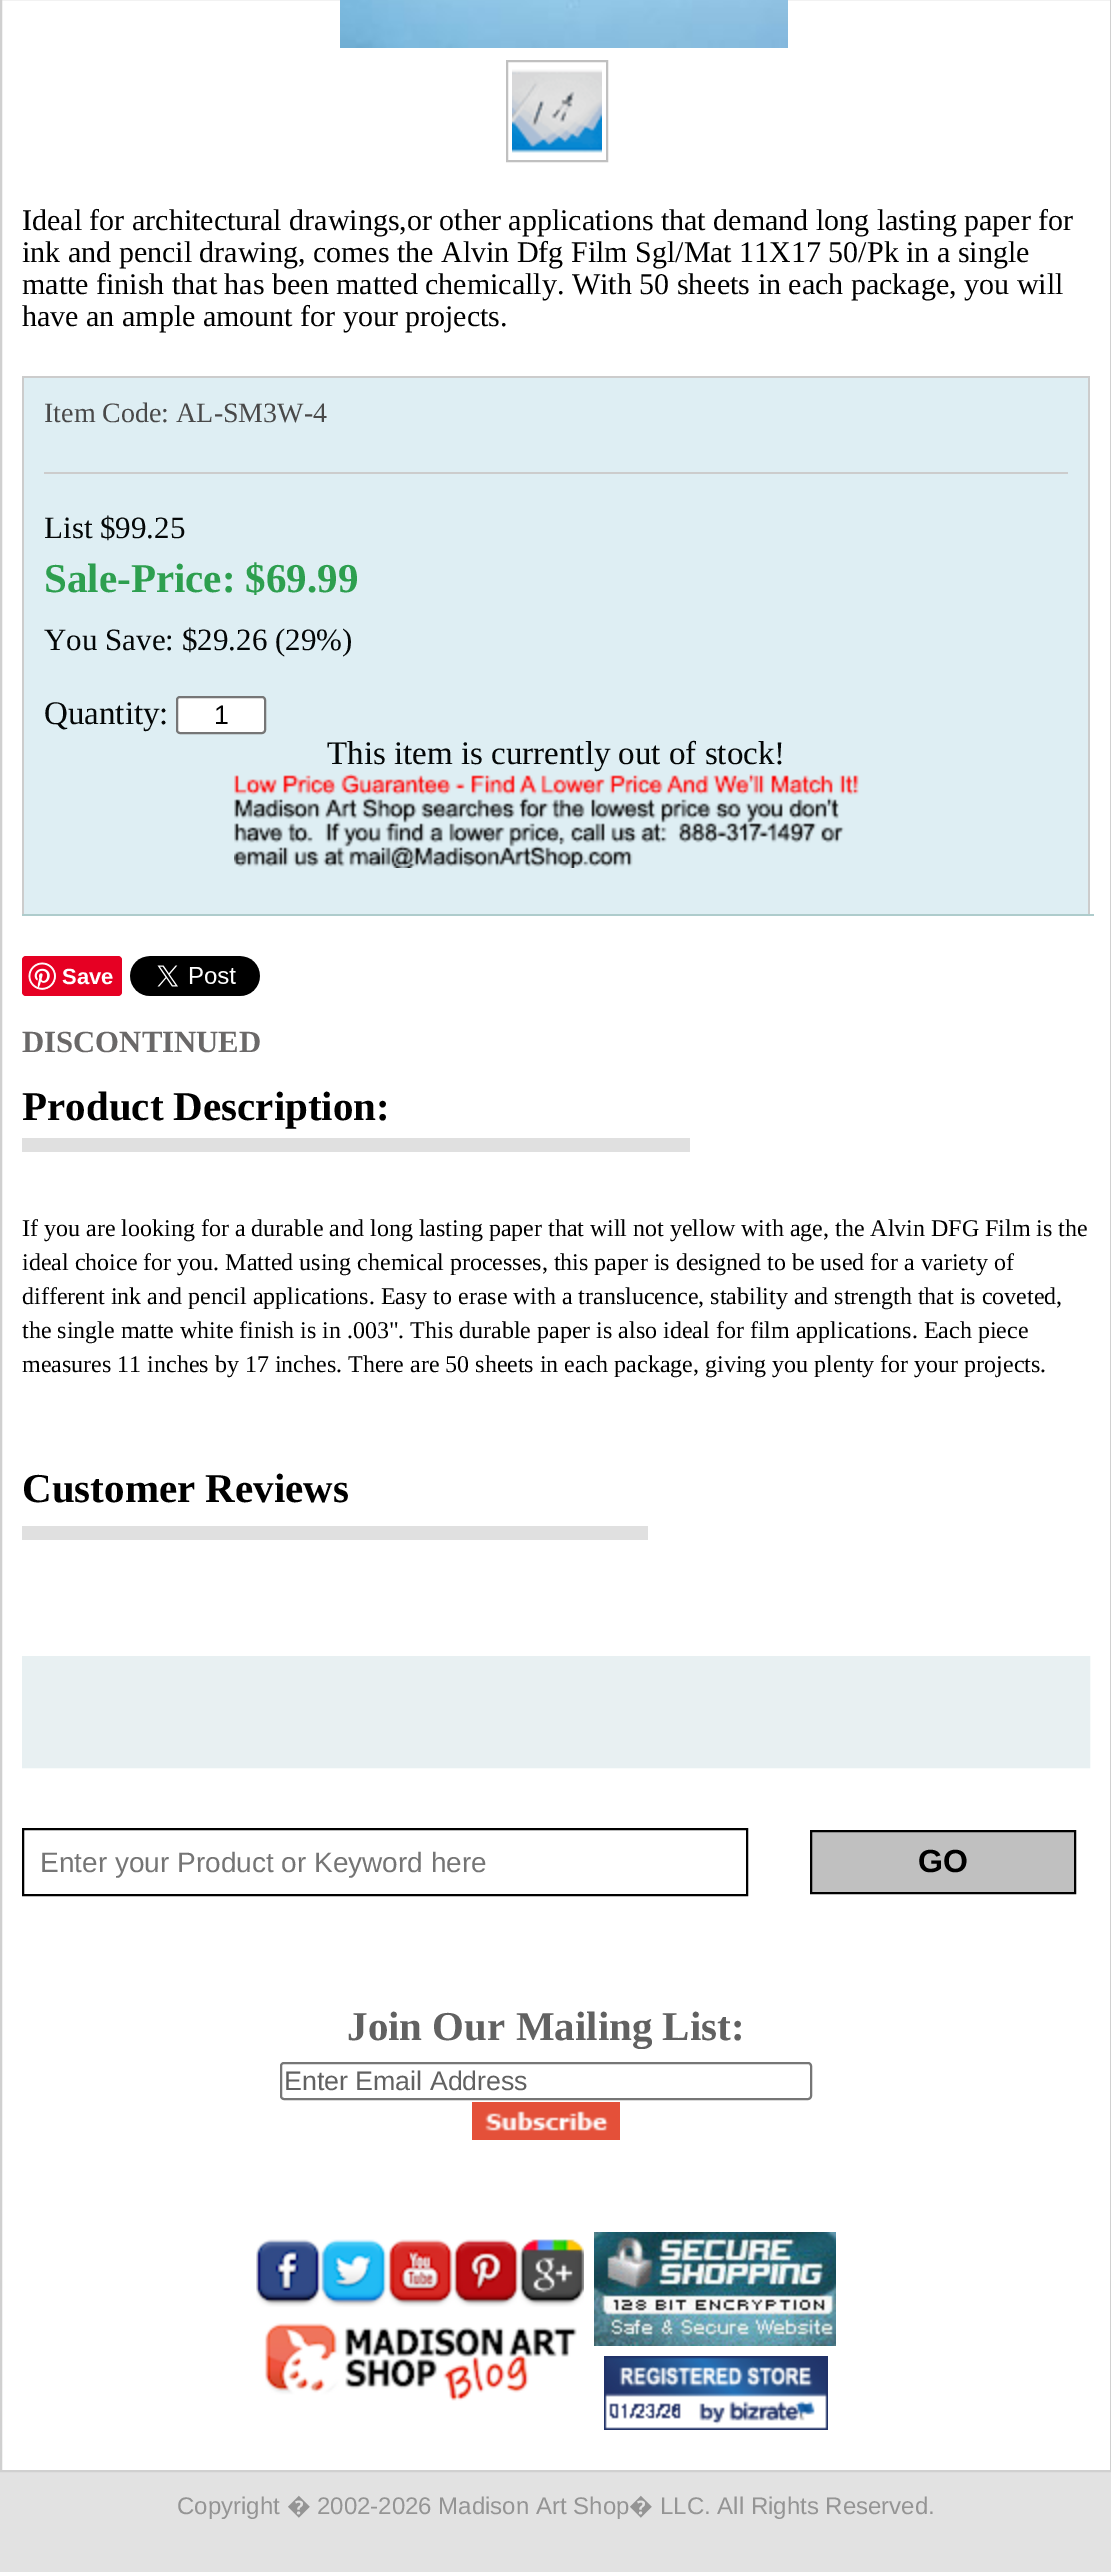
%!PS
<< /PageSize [1111 2572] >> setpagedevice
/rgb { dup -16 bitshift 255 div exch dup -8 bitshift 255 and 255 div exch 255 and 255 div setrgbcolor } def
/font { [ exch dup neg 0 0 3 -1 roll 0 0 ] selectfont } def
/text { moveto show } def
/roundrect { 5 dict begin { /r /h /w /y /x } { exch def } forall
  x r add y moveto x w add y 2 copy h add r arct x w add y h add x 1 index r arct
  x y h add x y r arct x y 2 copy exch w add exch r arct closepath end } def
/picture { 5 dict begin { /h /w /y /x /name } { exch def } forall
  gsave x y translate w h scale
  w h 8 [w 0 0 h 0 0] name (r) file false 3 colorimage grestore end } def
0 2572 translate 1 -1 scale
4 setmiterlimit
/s1 { /LiberationSerif-Regular 30 font 16#000000 rgb } def
/s2 { /LiberationSerif-Regular 28 font 16#494949 rgb } def
/s3 { /LiberationSerif-Regular 31 font 16#040707 rgb } def
/s4 { /LiberationSerif-Bold 41 font 16#2D9F4F rgb } def
/s5 { /LiberationSerif-Regular 33 font 16#040707 rgb } def
/s6 { /LiberationSans-Regular 26.75 font 16#000000 rgb } def
/s7 { /LiberationSans-Bold 22 font 16#FFFFFF rgb } def
/s8 { /LiberationSerif-Bold 30.75 font 16#6A6868 rgb } def
/s9 { /LiberationSerif-Bold 41 font 16#000000 rgb } def
/s10 { /LiberationSerif-Regular 24 font 16#000000 rgb } def
/s11 { /LiberationSans-Regular 28 font 16#757575 rgb } def
/s12 { /LiberationSans-Bold 32 font 16#000000 rgb } def
/s13 { /LiberationSerif-Bold 41 font 16#616161 rgb } def
/s14 { /LiberationSans-Regular 26.75 font 16#616161 rgb } def
/s15 { /LiberationSans-Regular 24 font 16#949494 rgb } def
/s16 { /NotoSans-Regular 24 font 16#949494 rgb } def
16#E2E2E2 rgb
0 0 1111 2572 rectfill
16#FFFFFF rgb
1 -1 moveto 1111 -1 lineto 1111 2471 lineto 1 2471 lineto closepath gsave fill grestore
16#D0D0D0 rgb
2 setlinewidth
stroke
(pic1.raw) 340 0 448 48 picture
16#C0C0C0 rgb
507 61 100 100 rectstroke
(pic2.raw) 512 69 90 84 picture
s1
(Ideal for architectural drawings,or other applications that demand long lasting paper for) 22 230 text
(ink and pencil drawing, comes the Alvin Dfg Film Sgl/Mat 11X17 50/Pk in a single) 22 262 text
(matte finish that has been matted chemically. With 50 sheets in each package, you will) 22 294 text
(have an ample amount for your projects.) 22 326 text
16#DEEEF3 rgb
24 378 1064 536 rectfill
16#CCCCCC rgb
22 376 1068 2 rectfill
1088 376 2 538 rectfill
22 376 2 538 rectfill
s2
(Item Code: AL-SM3W-4) 44 422 text
16#CCCCCC rgb
44 472 1024 2 rectfill
s3
(List $99.25) 44 538 text
s4
(Sale-Price: $69.99) 44 592 text
s3
(You Save: $29.26 \(29%\)) 44 650 text
s5
(Quantity:) 44 724 text
16#FFFFFF rgb
177 697 88 36 3 roundrect gsave fill grestore
16#767676 rgb
stroke
s6
(1) 214 724 text
s5
(This item is currently out of stock!) 327 764 text
(pic3.raw) 234 774 625 94 picture
16#AECCCC rgb
22 914 1072 2 rectfill
16#E60023 rgb
22 956 100 40 4 roundrect fill
(pic4.raw) 28 962 28 28 picture
s7
(Save) 62 984 text
(pic5.raw) 130 956 130 40 picture
s8
(DISCONTINUED) 22 1052 text
16#E0E0E0 rgb
22 1138 668 14 rectfill
s9
(Product Description:) 22 1120 text
s10
(If you are looking for a durable and long lasting paper that will not yellow with age, the Alvin DFG Film is the) 22 1236 text
(ideal choice for you. Matted using chemical processes, this paper is designed to be used for a variety of) 22 1270 text
(different ink and pencil applications. Easy to erase with a translucence, stability and strength that is coveted,) 22 1304 text
(the single matte white finish is in .003". This durable paper is also ideal for film applications. Each piece) 22 1338 text
(measures 11 inches by 17 inches. There are 50 sheets in each package, giving you plenty for your projects.) 22 1372 text
16#E0E0E0 rgb
22 1526 626 14 rectfill
s9
(Customer Reviews) 22 1502 text
16#E8F0F2 rgb
20 setlinewidth
32 1666 1048 92 rectstroke
42 1676 1028 72 rectfill
16#000000 rgb
2 setlinewidth
23 1829 724 66 rectstroke
s11
(Enter your Product or Keyword here) 40 1872 text
16#C0C0C0 rgb
811 1831 moveto 1075 1831 lineto 1075 1893 lineto 811 1893 lineto closepath gsave fill grestore
16#000000 rgb
stroke
s12
(GO) 918 1872 text
s13
(Join Our Mailing List:) 347 2040 text
16#767676 rgb
281 2063 530 36 3 roundrect stroke
s14
(Enter Email Address) 284 2090 text
(pic6.raw) 472 2102 148 38 picture
(pic7.raw) 256 2239 328 68 picture
(pic8.raw) 264 2323 313 78 picture
(pic9.raw) 594 2232 242 114 picture
(pic10.raw) 604 2356 224 74 picture
s15
(Copyright) 177 2514 text
s16
(�) 287 2514 text
s15
(2002-2026 Madison Art Shop) 317 2514 text
s16
(�) 629 2514 text
s15
(LLC. All Rights Reserved.) 660 2514 text
showpage
